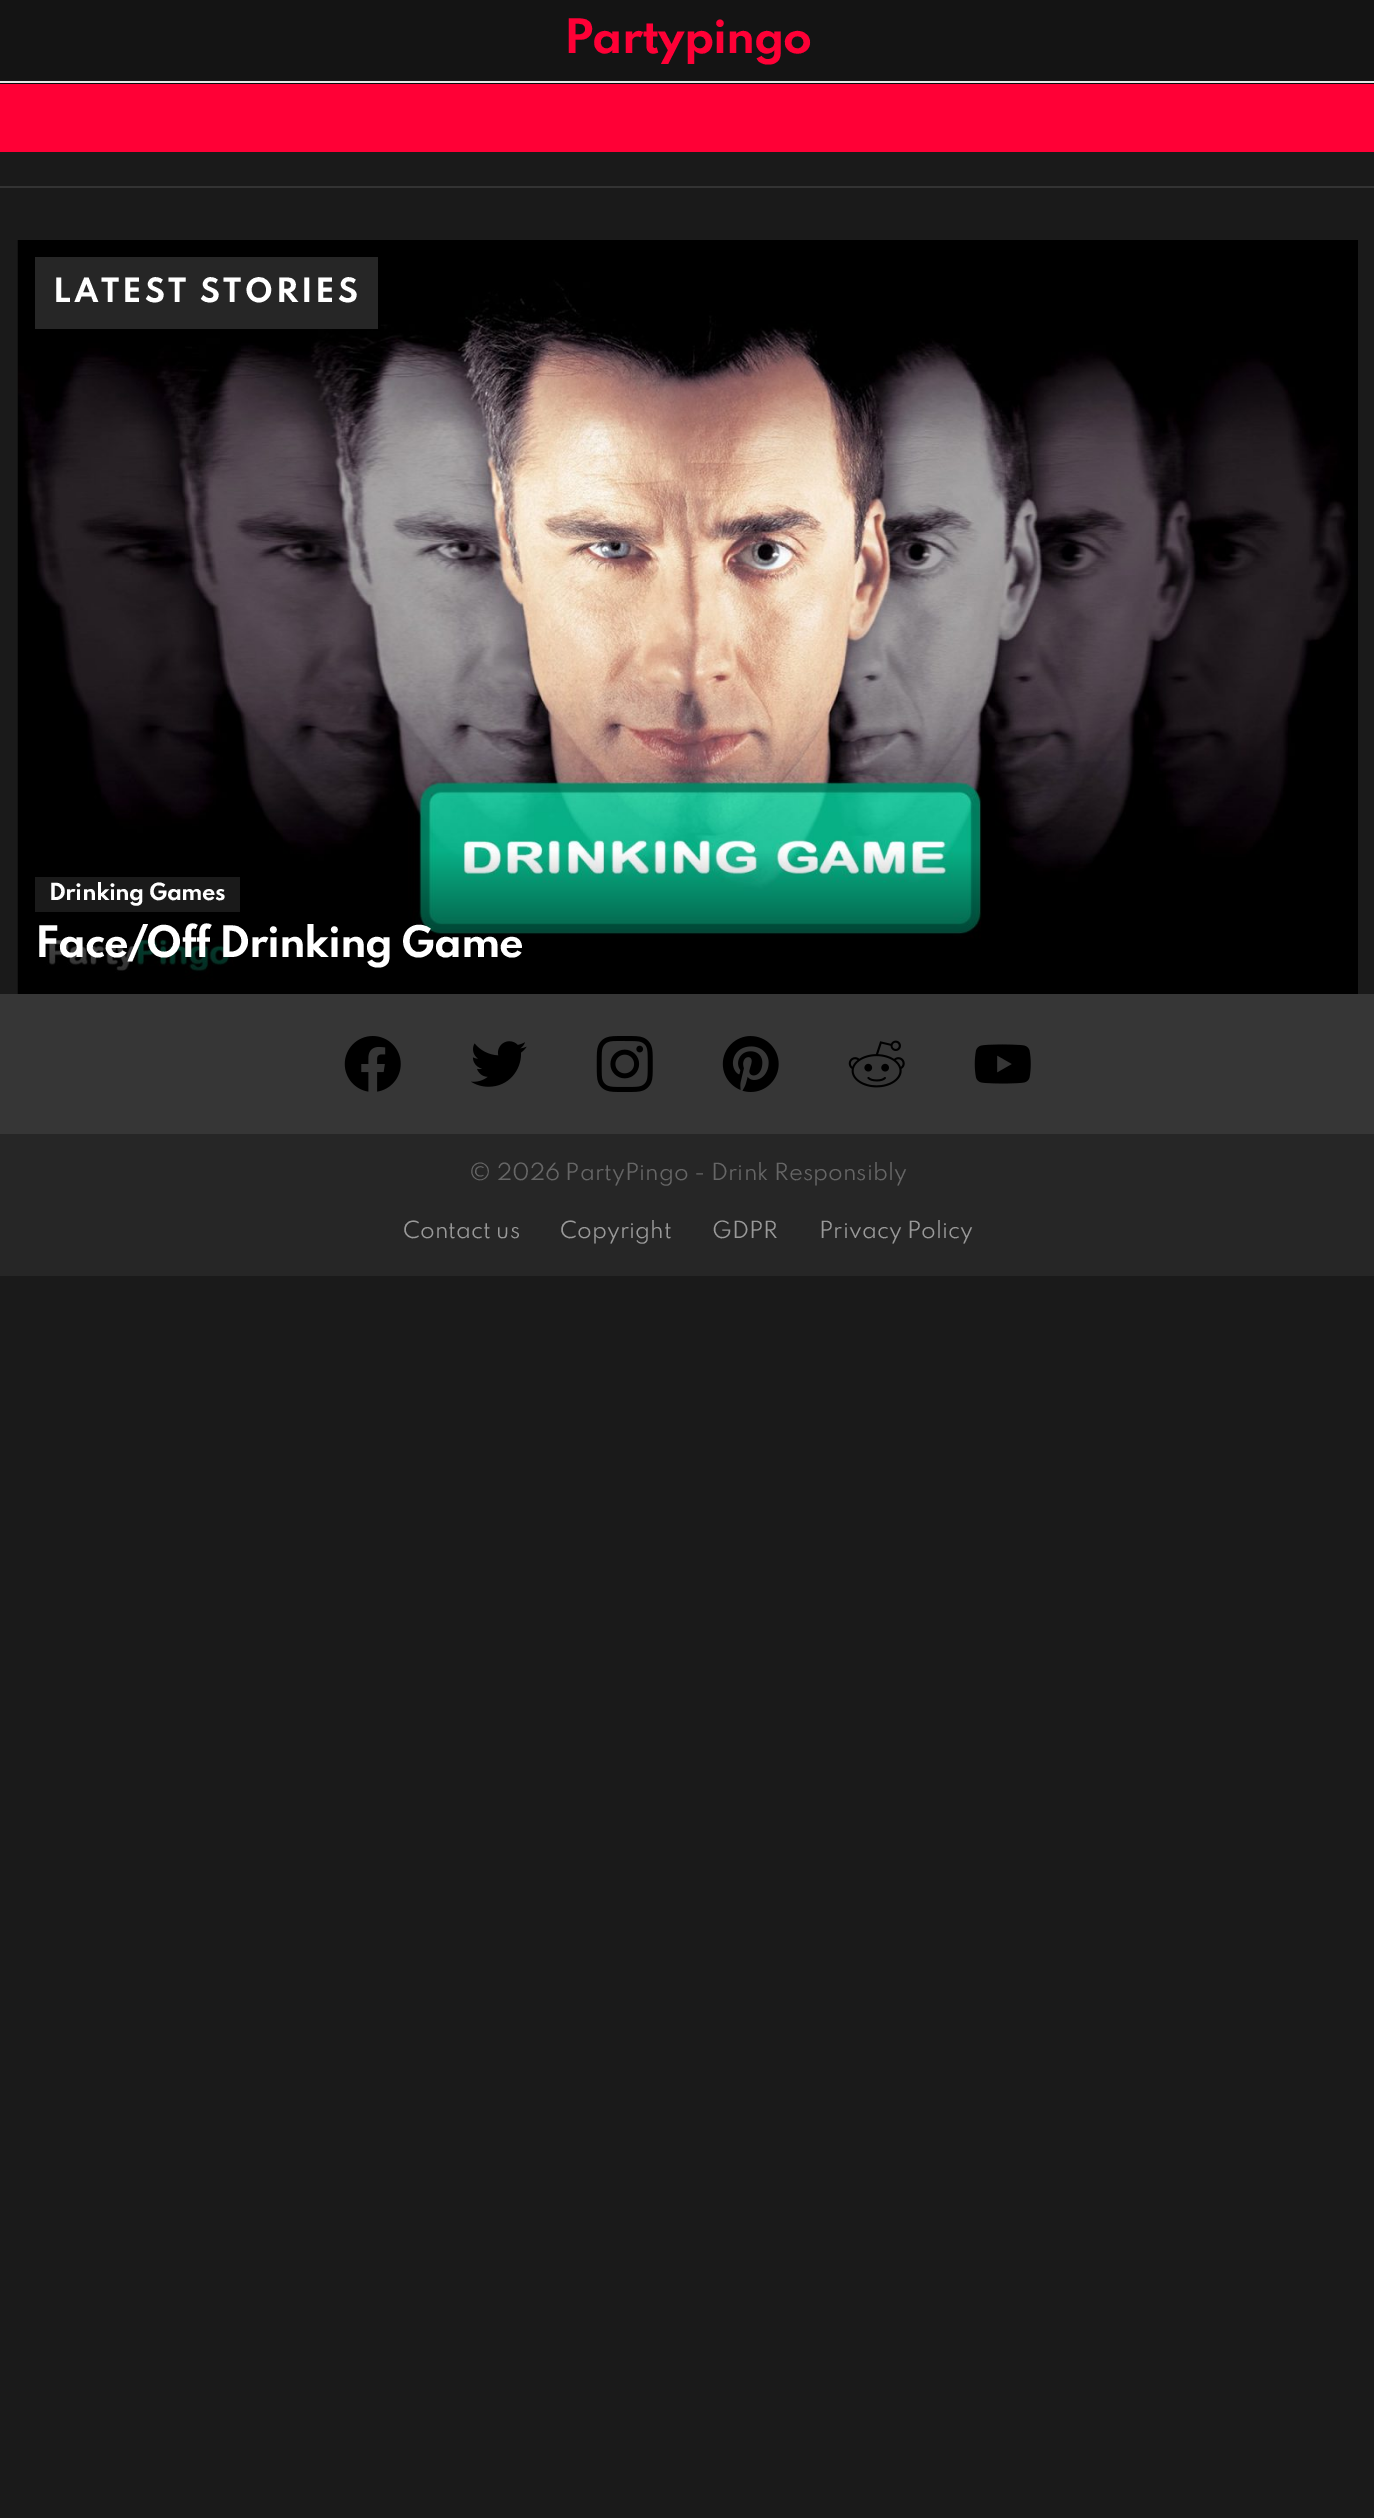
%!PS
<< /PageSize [1374 2518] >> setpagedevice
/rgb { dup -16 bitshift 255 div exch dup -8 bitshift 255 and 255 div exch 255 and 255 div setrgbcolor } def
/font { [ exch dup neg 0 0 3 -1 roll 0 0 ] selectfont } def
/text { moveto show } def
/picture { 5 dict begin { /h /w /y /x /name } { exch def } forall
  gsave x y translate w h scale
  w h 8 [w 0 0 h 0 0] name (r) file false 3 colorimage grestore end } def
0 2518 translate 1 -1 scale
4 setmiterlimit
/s1 { /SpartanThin-Regular 21 font 16#666666 rgb } def
/s2 { /SpartanThin-Regular 21 font 16#999999 rgb } def
16#1A1A1A rgb
0 0 1374 2518 rectfill
16#141414 rgb
0 0 1374 81 rectfill
16#E6E6E6 rgb
0 81 1374 2 rectfill
/SpartanThin-Bold 42 font
16#FF0036 rgb
564 53 moveto -1.25 0 (Partypingo) ashow
16#0A0A0A rgb
0 83 1374 1 rectfill
16#FF0036 rgb
0 84 1374 68 rectfill
16#333333 rgb
0 186 1374 2 rectfill
(pic1.raw) 17 240 1341 754 picture
16#262626 rgb
35 257 343 72 rectfill
/SpartanThin-Bold 29.75 font
16#FFFFFF rgb
53 302 moveto 2.9 0 (LATEST STORIES) ashow
16#1A1A1A rgb
35 877 205 35 rectfill
/SpartanThin-Bold 21 font
16#FFFFFF rgb
49 900 moveto -0.6 0 (Drinking Games) ashow
/SpartanThin-Bold 38.5 font
35 957 moveto -1.2 0 (Face/Off Drinking Game) ashow
16#363636 rgb
0 994 1374 140 rectfill
(pic2.raw) 344 1036 57 56 picture
(pic3.raw) 471 1041 56 46 picture
(pic4.raw) 596 1036 57 56 picture
(pic5.raw) 722 1036 57 56 picture
(pic6.raw) 848 1040 57 48 picture
(pic7.raw) 974 1044 57 40 picture
16#262626 rgb
0 1134 1374 142 rectfill
s1
(© 2026 PartyPingo - Drink Responsibly) 469 1180 text
s2
(Contact us) 403 1238 text
(Copyright) 560 1238 text
(GDPR) 712 1238 text
(Privacy Policy) 819 1238 text
showpage
